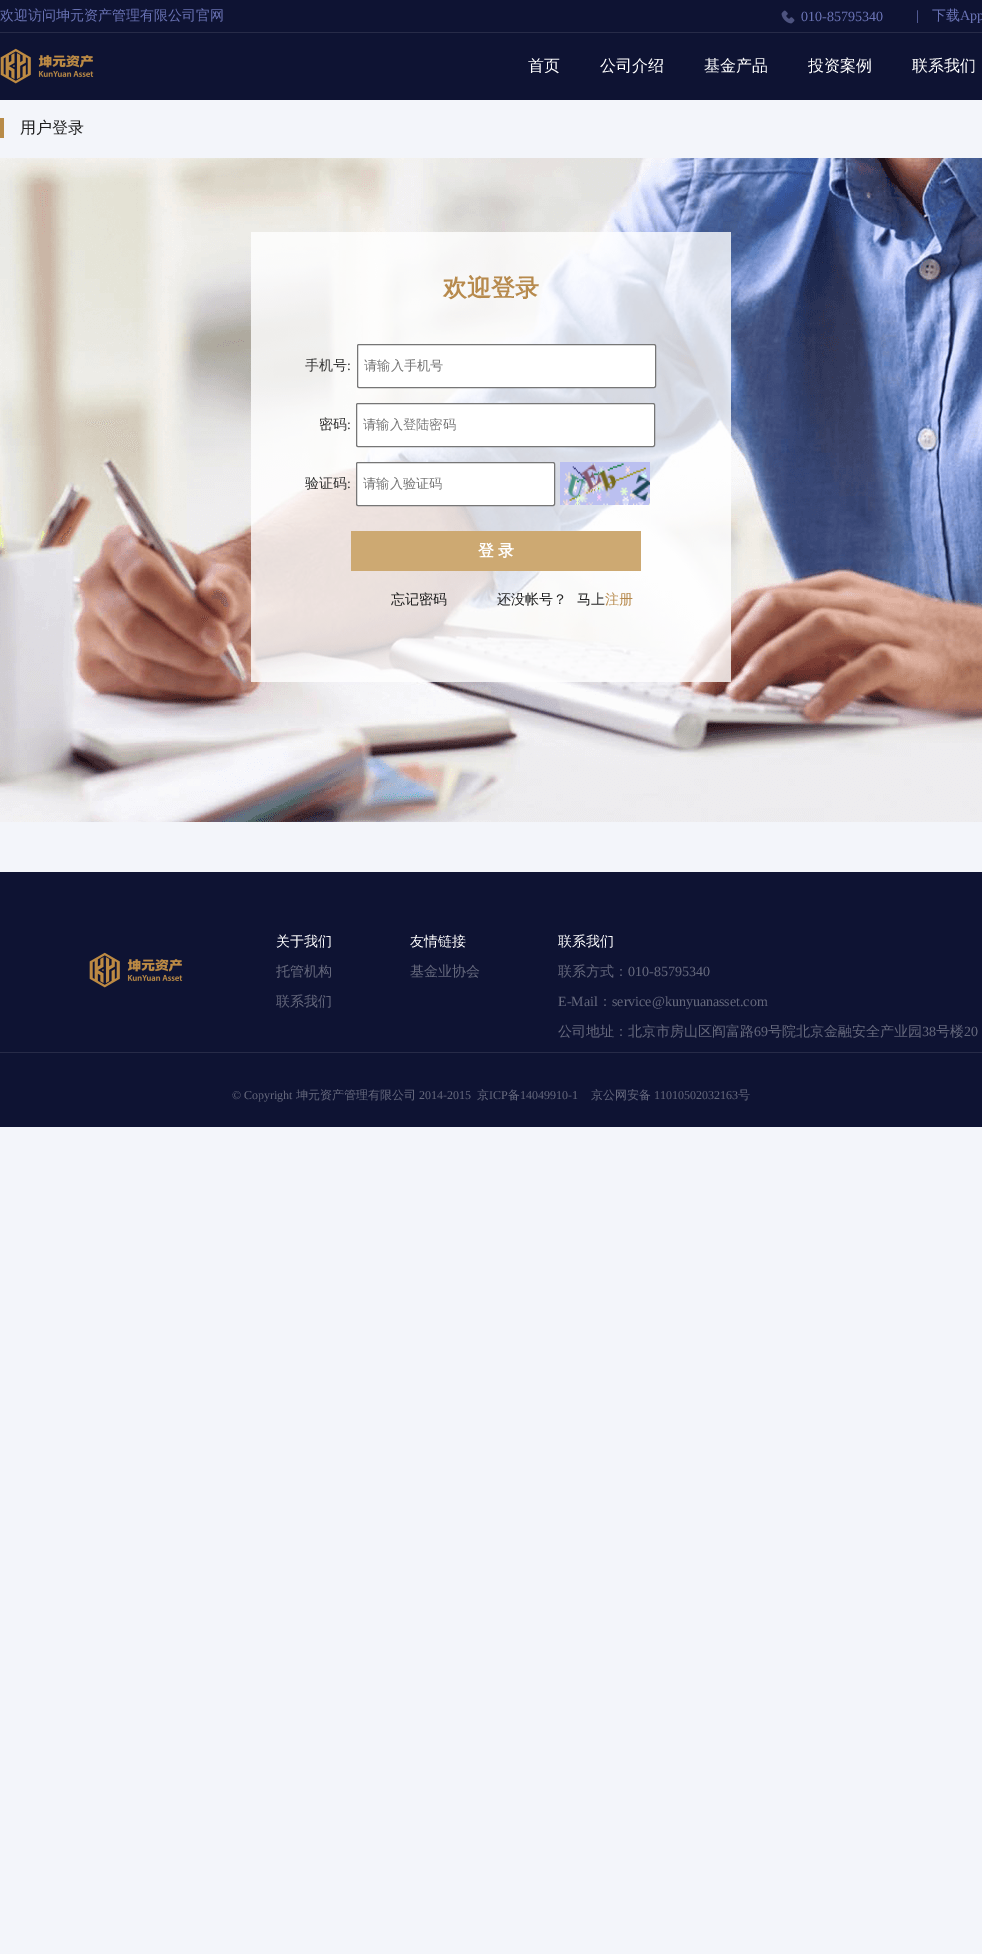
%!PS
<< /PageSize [982 1954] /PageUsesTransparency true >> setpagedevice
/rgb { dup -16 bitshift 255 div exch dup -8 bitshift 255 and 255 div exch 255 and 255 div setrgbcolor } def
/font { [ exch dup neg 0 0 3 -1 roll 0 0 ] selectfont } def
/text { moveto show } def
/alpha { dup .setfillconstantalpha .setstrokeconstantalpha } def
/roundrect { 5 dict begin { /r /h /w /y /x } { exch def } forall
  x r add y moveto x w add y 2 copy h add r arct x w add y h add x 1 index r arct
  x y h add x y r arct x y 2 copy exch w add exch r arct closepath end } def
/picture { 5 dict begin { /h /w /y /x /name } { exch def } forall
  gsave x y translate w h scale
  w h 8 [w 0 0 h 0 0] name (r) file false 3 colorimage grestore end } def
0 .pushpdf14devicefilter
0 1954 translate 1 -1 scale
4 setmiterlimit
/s1 { /WenQuanYiZenHei-Medium 14 font 16#6972B4 rgb } def
/s2 { /LiberationSerif-Regular 14 font 16#6972B4 rgb } def
/s3 { /WenQuanYiZenHei-Medium 16 font 16#FFFFFF rgb } def
/s4 { /WenQuanYiZenHei-Medium 16 font 16#202020 rgb } def
/s5 { /WenQuanYiZenHei-Bold 24 font 16#B78A4D rgb } def
/s6 { /WenQuanYiZenHei-Medium 14 font 16#333333 rgb } def
/s7 { /LiberationSerif-Regular 14 font 16#333333 rgb } def
/s8 { /WenQuanYiZenHei-Medium 13.25 font 16#757575 rgb } def
/s9 { /WenQuanYiZenHei-Bold 16 font 16#FFFFFF rgb } def
/s10 { /WenQuanYiZenHei-Medium 14 font 16#202020 rgb } def
/s11 { /WenQuanYiZenHei-Medium 14 font 16#B78A4D rgb } def
/s12 { /WenQuanYiZenHei-Medium 14 font 16#FFFFFF rgb } def
/s13 { /WenQuanYiZenHei-Medium 14 font 16#65687C rgb } def
/s14 { /LiberationSerif-Regular 14 font 16#65687C rgb } def
/s15 { /LiberationSerif-Regular 12 font 16#65687C rgb } def
/s16 { /WenQuanYiZenHei-Medium 12 font 16#65687C rgb } def
16#F3F5FA rgb
0 0 982 1954 rectfill
16#0E1333 rgb
0 0 982 32 rectfill
16#272B48 rgb
0 32 982 1 rectfill
s1
(欢迎访问坤元资产管理有限公司官网) 0 20 text
(pic1.raw) 781 10 14 14 picture
s2
(010-85795340) 801 21 text
(|) 916 20 text
s1
(下载) 932 20 text
s2
(App) 960 20 text
16#0E1333 rgb
0 33 982 67 rectfill
(pic2.raw) 0 48 94 36 picture
s3
(首页) 528 71 text
(公司介绍) 600 71 text
(基金产品) 704 71 text
(投资案例) 808 71 text
(联系我们) 912 71 text
16#B88B48 rgb
0 118 4 20 rectfill
s4
(用户登录) 20 133 text
(pic3.raw) 0 158 982 664 picture
0.8 alpha
16#FFFFFF rgb
251 232 480 450 rectfill
1 alpha
s5
(欢迎登录) 443 296 text
s6
(手机号) 305 370 text
s7
(:) 347 370 text
16#FFFFFF rgb
357.5 344.5 298 43 1.5 roundrect gsave fill grestore
16#767676 rgb
stroke
s8
(请输入手机号) 364 370 text
s6
(密码) 319 429 text
s7
(:) 347 429 text
16#FFFFFF rgb
356.5 403.5 298 43 1.5 roundrect gsave fill grestore
16#767676 rgb
stroke
s8
(请输入登陆密码) 363 429 text
s6
(验证码) 305 488 text
s7
(:) 347 488 text
16#FFFFFF rgb
356.5 462.5 198 43 1.5 roundrect gsave fill grestore
16#767676 rgb
stroke
s8
(请输入验证码) 363 488 text
(pic4.raw) 560 462 90 43 picture
16#CDA972 rgb
351 531 290 40 rectfill
s9
(登) 478 556 text
(录) 498 556 text
s10
(忘记密码) 391 604 text
(还没帐号？) 497 604 text
(马上) 577 604 text
s11
(注册) 605 604 text
16#0E1333 rgb
0 872 982 255 rectfill
16#272B48 rgb
0 1052 982 1 rectfill
(pic2.raw) 89 952 94 36 picture
s12
(关于我们) 276 946 text
s13
(托管机构) 276 976 text
(联系我们) 276 1006 text
s12
(友情链接) 410 946 text
s13
(基金业协会) 410 976 text
s12
(联系我们) 558 946 text
s13
(联系方式：) 558 976 text
s14
(010-85795340) 628 976 text
(E-Mail) 558 1006 text
s13
(：) 598 1006 text
s14
(service@kunyuanasset.com) 612 1006 text
s13
(公司地址：北京市房山区阎富路) 558 1036 text
s14
(69) 754 1036 text
s13
(号院北京金融安全产业园) 768 1036 text
s14
(38) 922 1036 text
s13
(号楼) 936 1036 text
s14
(20) 964 1036 text
s15
(© Copyright) 232 1099 text
s16
(坤元资产管理有限公司) 296 1099 text
s15
(2014-2015) 419 1099 text
s16
(京) 477 1099 text
s15
(ICP) 489 1099 text
s16
(备) 508 1099 text
s15
(14049910-1) 520 1099 text
s16
(京公网安备) 591 1099 text
s15
(11010502032163) 654 1099 text
s16
(号) 738 1099 text
.poppdf14devicefilter showpage
